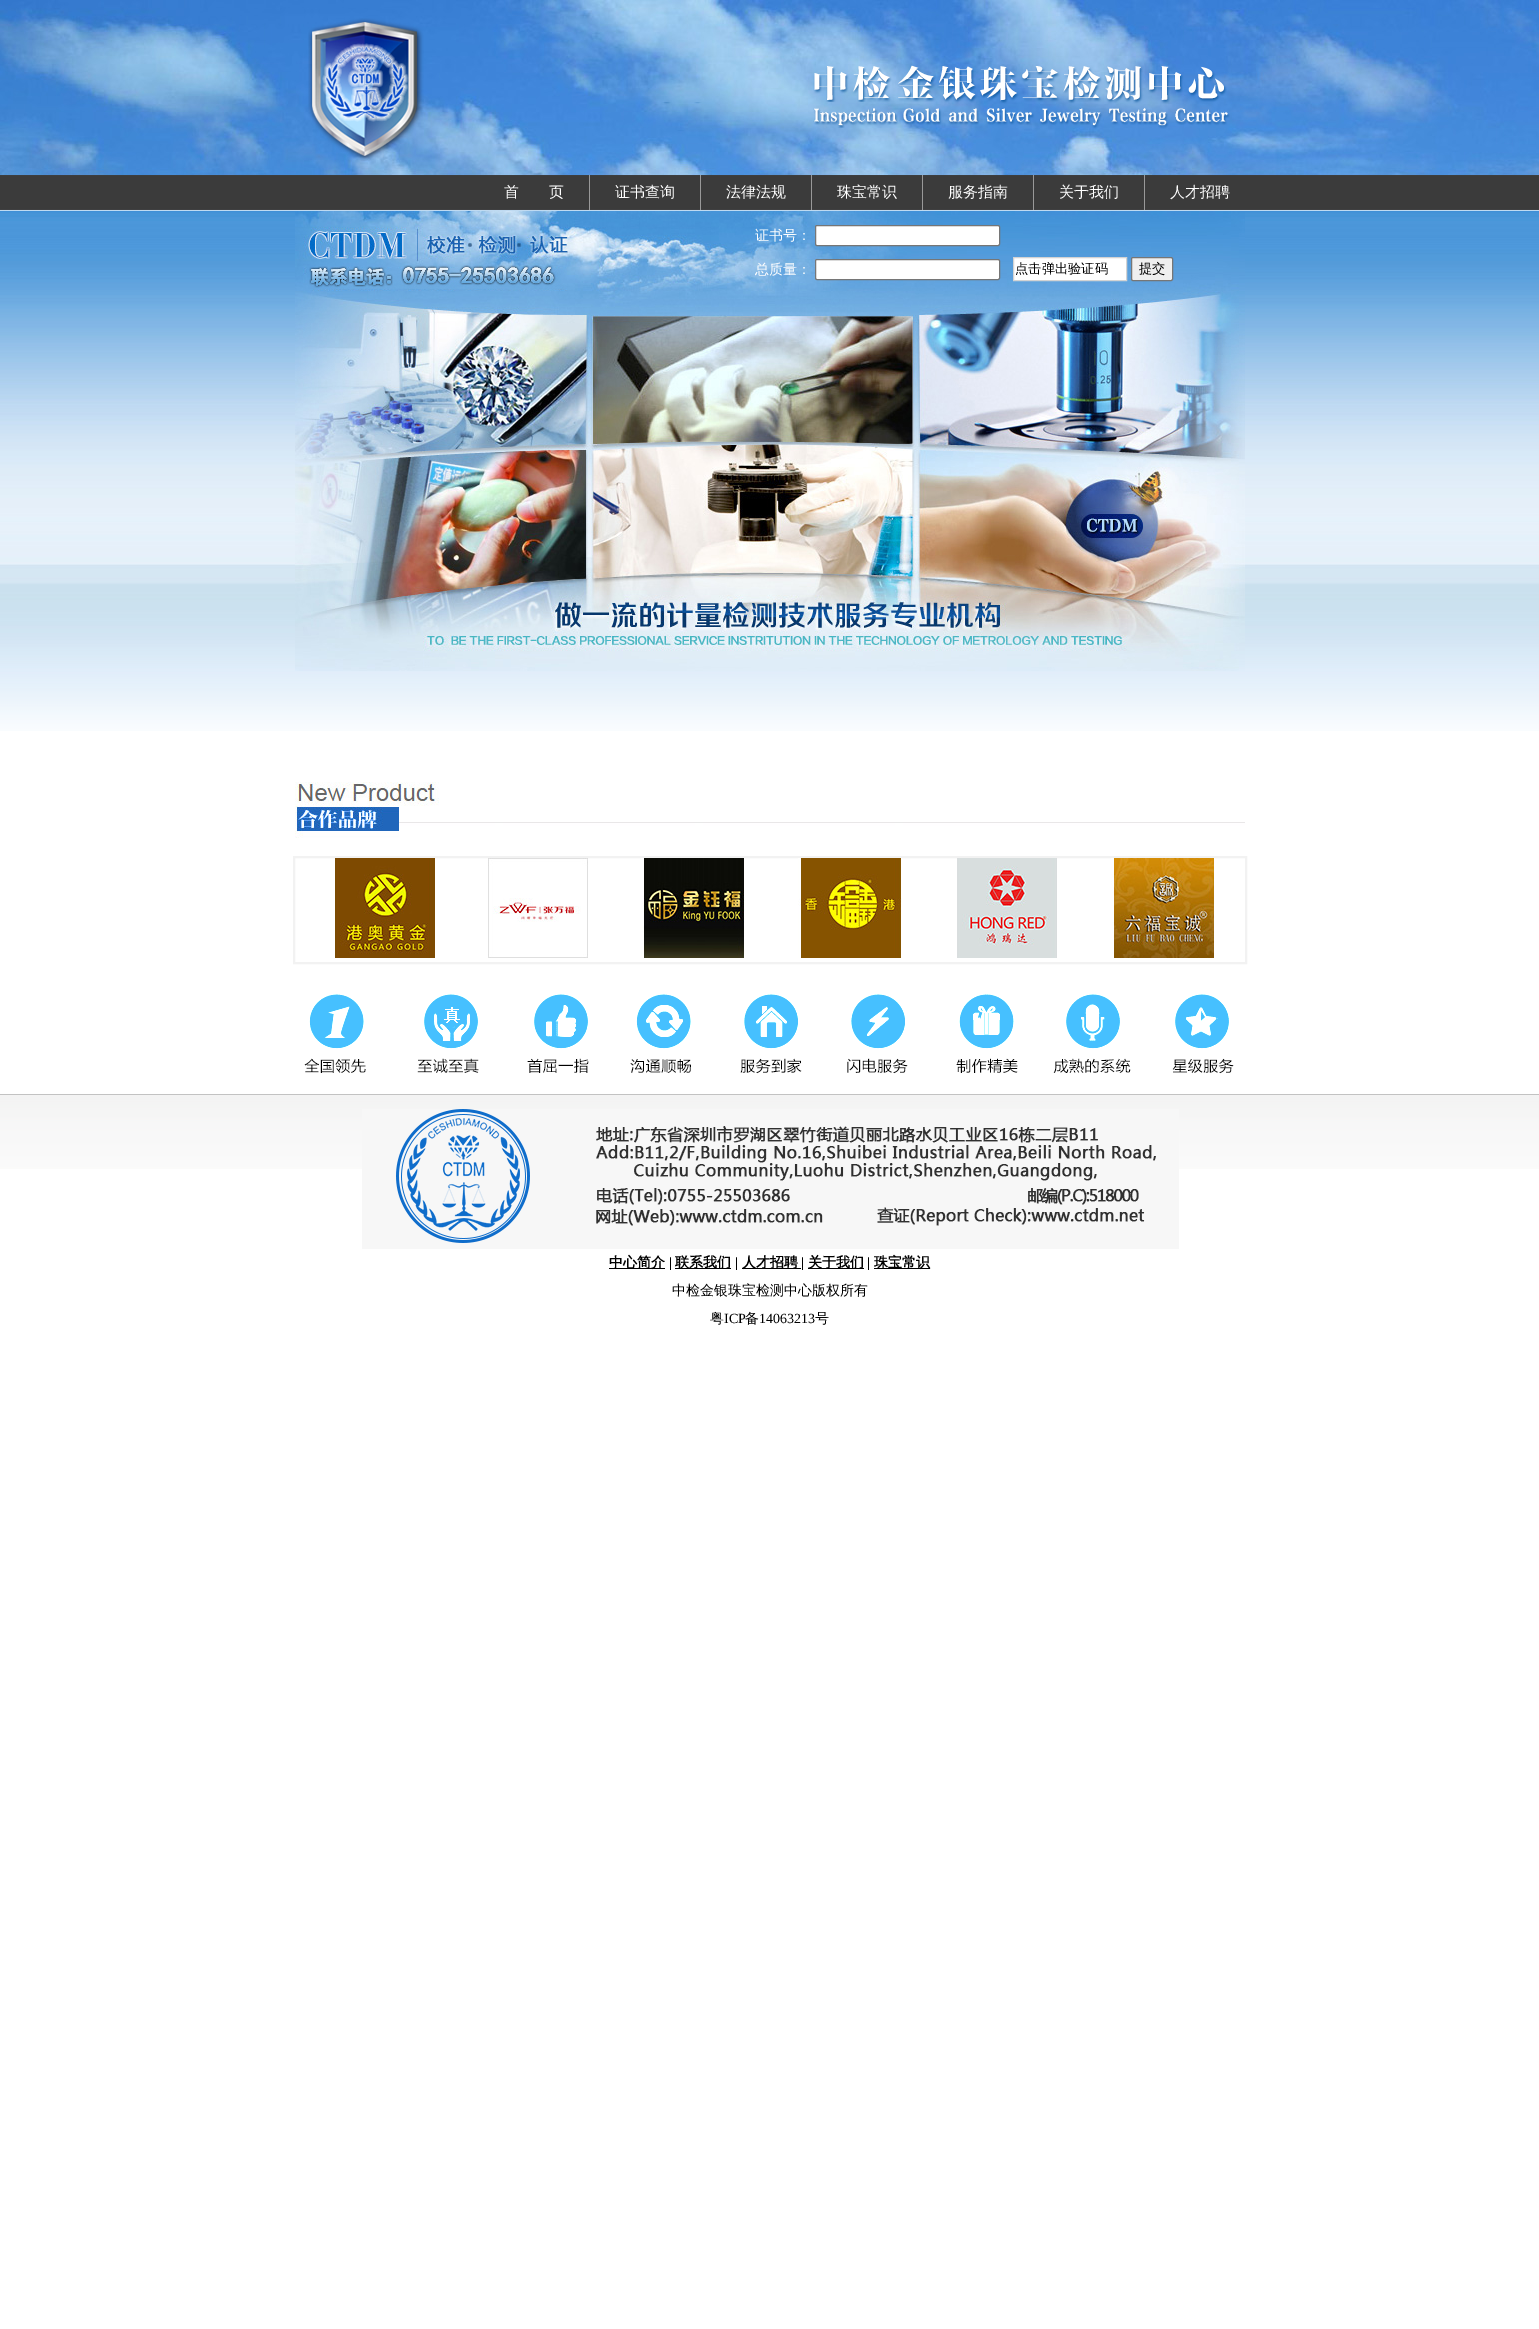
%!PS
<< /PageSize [1539 2329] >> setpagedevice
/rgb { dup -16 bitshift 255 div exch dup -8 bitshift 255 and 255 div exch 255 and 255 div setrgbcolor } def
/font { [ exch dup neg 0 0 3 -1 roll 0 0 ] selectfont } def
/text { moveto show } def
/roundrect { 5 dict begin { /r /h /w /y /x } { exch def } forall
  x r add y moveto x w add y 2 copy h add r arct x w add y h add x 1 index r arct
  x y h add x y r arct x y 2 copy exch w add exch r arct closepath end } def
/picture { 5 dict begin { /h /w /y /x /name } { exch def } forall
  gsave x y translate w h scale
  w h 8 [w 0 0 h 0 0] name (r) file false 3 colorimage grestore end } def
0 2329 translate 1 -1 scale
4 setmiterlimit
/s1 { /WenQuanYiZenHei-Medium 15 font 16#FFFFFF rgb } def
/s2 { /WenQuanYiZenHei-Medium 14 font 16#FFFFFF rgb } def
/s3 { /WenQuanYiZenHei-Medium 13.25 font 16#000000 rgb } def
/s4 { /WenQuanYiZenHei-Bold 14 font 16#000000 rgb } def
/s5 { /LiberationSerif-Bold 14 font 16#000000 rgb } def
/s6 { /WenQuanYiZenHei-Medium 14 font 16#000000 rgb } def
/s7 { /LiberationSerif-Regular 14 font 16#000000 rgb } def
16#FFFFFF rgb
0 0 1539 2329 rectfill
(pic1.raw) 0 0 1539 175 picture
(pic2.raw) 308 18 922 143 picture
(pic3.raw) 0 175 1539 36 picture
s1
(首　　页) 504 197 text
16#999999 rgb
589 175 1 35 rectfill
s1
(证书查询) 615 197 text
16#999999 rgb
700 175 1 35 rectfill
s1
(法律法规) 726 197 text
16#999999 rgb
811 175 1 35 rectfill
s1
(珠宝常识) 837 197 text
16#999999 rgb
922 175 1 35 rectfill
s1
(服务指南) 948 197 text
16#999999 rgb
1033 175 1 35 rectfill
s1
(关于我们) 1059 197 text
16#999999 rgb
1144 175 1 35 rectfill
s1
(人才招聘) 1170 197 text
(pic4.raw) 0 211 1539 520 picture
(pic5.raw) 295 211 950 460 picture
s2
(证书号：) 755 240 text
815.5 225.5 184 20 1.5 roundrect gsave fill grestore
16#767676 rgb
stroke
s2
(总质量：) 755 274 text
815.5 259.5 184 20 1.5 roundrect gsave fill grestore
16#767676 rgb
stroke
16#FFFFFF rgb
1013.5 257.5 moveto 1126.5 257.5 lineto 1126.5 280.5 lineto 1013.5 280.5 lineto closepath gsave fill grestore
16#D3D3D3 rgb
stroke
s3
(点击弹出验证码) 1015 273 text
16#EFEFEF rgb
1131.5 257.5 41 23 1.5 roundrect gsave fill grestore
16#767676 rgb
stroke
s3
(提交) 1139 273 text
(pic6.raw) 295 782 950 56 picture
16#F2F2F2 rgb
2 setlinewidth
294 857 952 106 rectstroke
(pic7.raw) 335 858 100 100 picture
(pic8.raw) 488 858 100 100 picture
(pic9.raw) 641 858 104 100 picture
(pic10.raw) 798 858 104 100 picture
(pic11.raw) 957 858 100 100 picture
(pic12.raw) 1111 858 104 100 picture
(pic13.raw) 304 994 930 80 picture
(pic14.raw) 0 1094 1539 75 picture
(pic15.raw) 362 1109 817 140 picture
16#000000 rgb
609 1268 56 1 rectfill
s4
(中心简介) 609 1267 text
s5
(|) 669 1267 text
675 1268 56 1 rectfill
s4
(联系我们) 675 1267 text
s5
(|) 735 1267 text
742 1268 59 1 rectfill
s4
(人才招聘) 742 1267 text
s5
(|) 801 1267 text
808 1268 56 1 rectfill
s4
(关于我们) 808 1267 text
s5
(|) 867 1267 text
874 1268 56 1 rectfill
s4
(珠宝常识) 874 1267 text
s6
(中检金银珠宝检测中心版权所有) 672 1295 text
(粤) 710 1323 text
s7
(ICP) 724 1323 text
s6
(备) 745 1323 text
s7
(14063213) 759 1323 text
s6
(号) 815 1323 text
showpage
